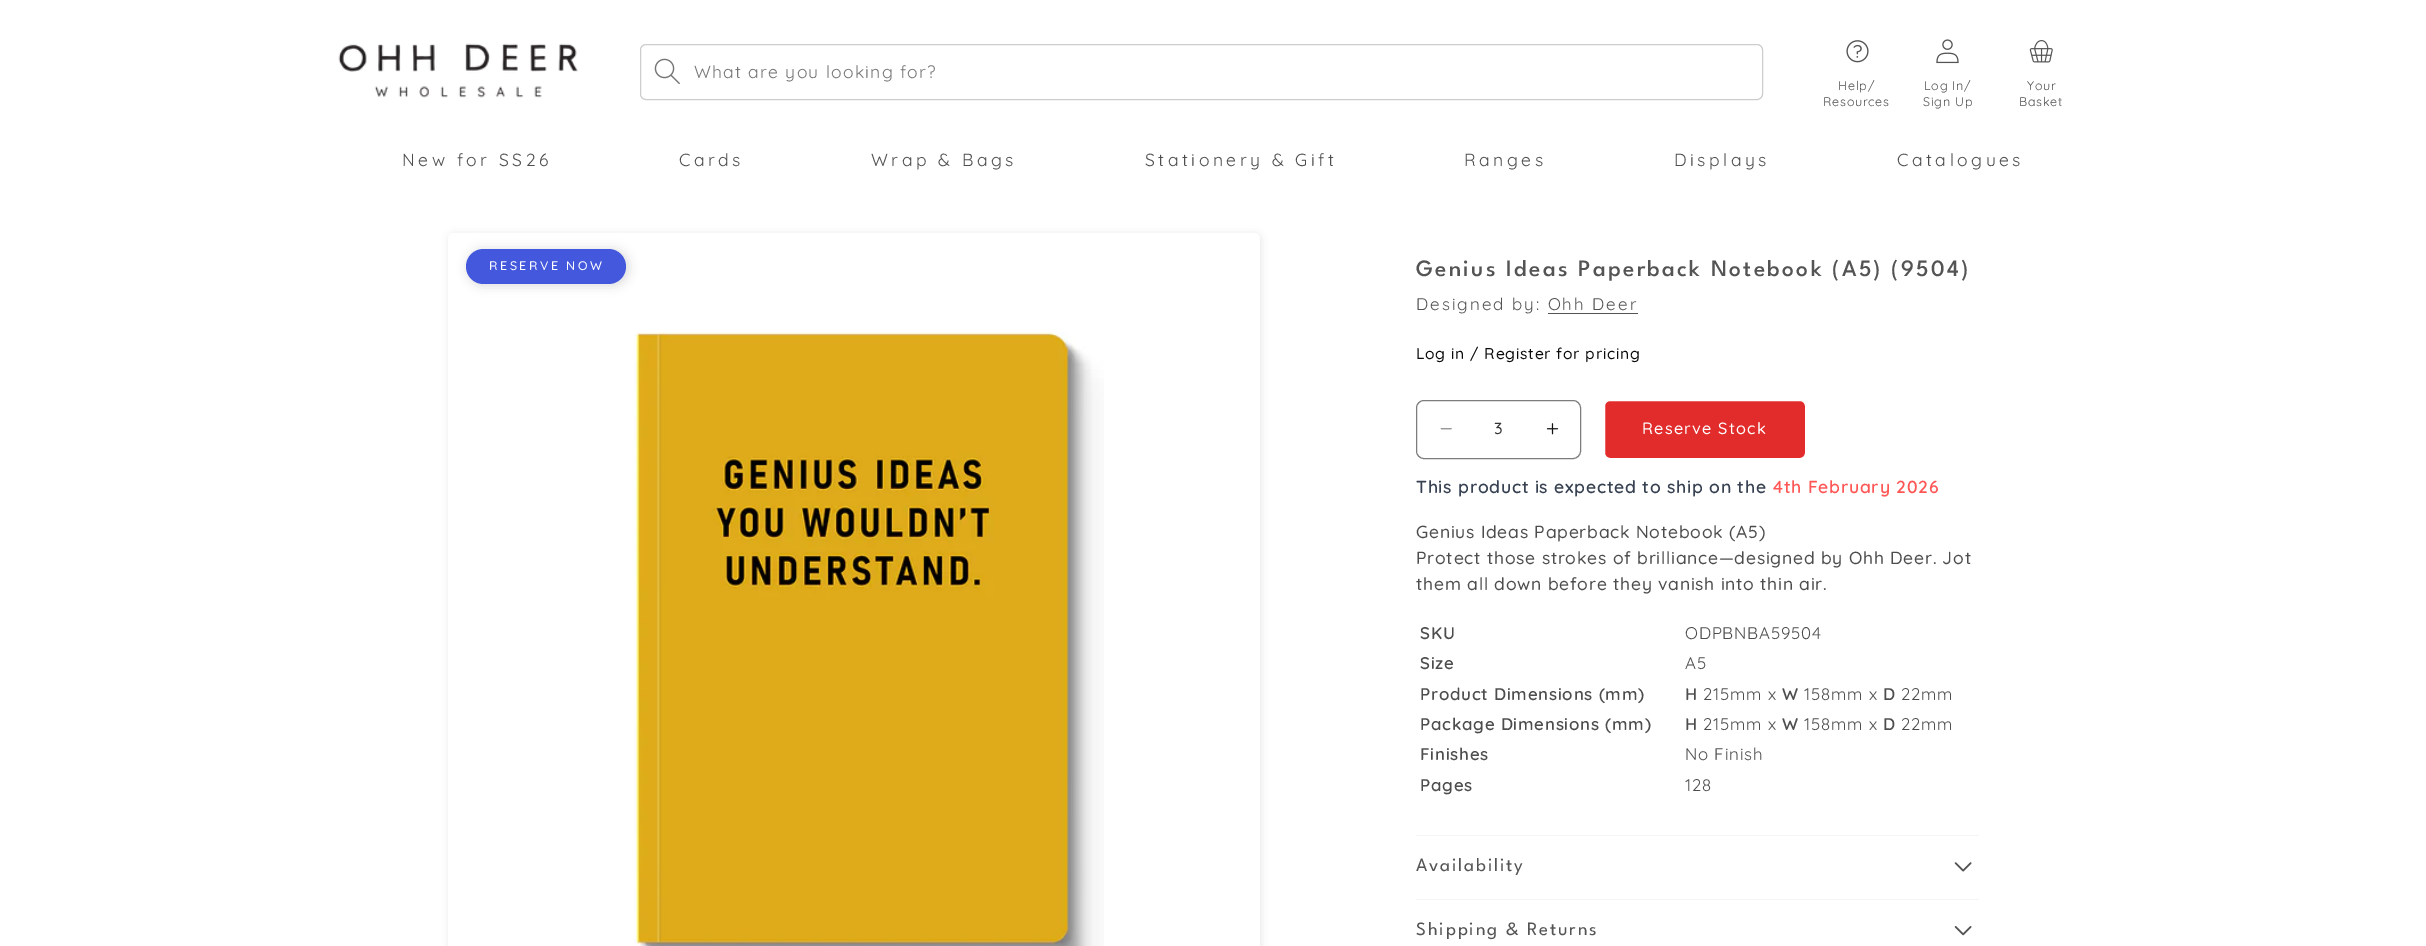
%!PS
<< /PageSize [2426 946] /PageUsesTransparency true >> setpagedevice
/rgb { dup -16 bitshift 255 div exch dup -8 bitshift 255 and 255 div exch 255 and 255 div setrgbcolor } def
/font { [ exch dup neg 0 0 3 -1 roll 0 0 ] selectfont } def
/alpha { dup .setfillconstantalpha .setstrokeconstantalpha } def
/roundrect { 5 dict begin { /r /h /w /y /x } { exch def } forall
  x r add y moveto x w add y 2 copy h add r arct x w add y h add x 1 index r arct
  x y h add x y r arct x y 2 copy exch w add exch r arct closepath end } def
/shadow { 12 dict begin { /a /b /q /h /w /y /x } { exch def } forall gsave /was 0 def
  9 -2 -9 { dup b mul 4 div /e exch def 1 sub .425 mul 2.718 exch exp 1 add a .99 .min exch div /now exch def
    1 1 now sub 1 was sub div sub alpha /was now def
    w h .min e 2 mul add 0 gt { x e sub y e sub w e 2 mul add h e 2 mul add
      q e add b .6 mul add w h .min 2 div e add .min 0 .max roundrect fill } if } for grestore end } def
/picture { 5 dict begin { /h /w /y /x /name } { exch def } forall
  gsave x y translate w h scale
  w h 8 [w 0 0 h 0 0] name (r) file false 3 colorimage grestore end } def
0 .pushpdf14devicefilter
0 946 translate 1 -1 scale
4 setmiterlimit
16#FFFFFF rgb
0 0 2426 946 rectfill
(pic1.raw) 338 43 240 55 picture
(pic2.raw) 654 58 26 27 picture
16#CDCDCD rgb
640.5 44.5 1122 55 5.5 roundrect stroke
/Quicksand-Regular 17.5 font
16#767676 rgb
694 78 moveto 1.25 0 (What are you looking for?) ashow
(pic3.raw) 1846 40 23 23 picture
/Quicksand-Regular 12.5 font
16#4D4D4D rgb
1838 90 moveto 0.75 0 (Help/) ashow
1823 106 moveto 0.75 0 (Resources) ashow
(pic4.raw) 1936 39 23 25 picture
1924 90 moveto 0.75 0 (Log In/) ashow
1923 106 moveto 0.75 0 (Sign Up) ashow
(pic5.raw) 2029 40 24 23 picture
2027 90 moveto 0.75 0 (Your) ashow
2019 106 moveto 0.75 0 (Basket) ashow
/Quicksand-Regular 17.5 font
402 166 moveto 3.5 0 (New for SS26) ashow
679 166 moveto 3.5 0 (Cards) ashow
871 166 moveto 3.5 0 (Wrap & Bags) ashow
1145 166 moveto 3.5 0 (Stationery & Gift) ashow
1464 166 moveto 3.5 0 (Ranges) ashow
1674 166 moveto 3.5 0 (Displays) ashow
1897 166 moveto 3.5 0 (Catalogues) ashow
16#000000 rgb
449 234 812 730 6 4 0.1 shadow
16#FFFFFF rgb
448 233 812 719 6 roundrect fill
(pic6.raw) 634 332 470 614 picture
16#000000 rgb
468 250 160 35 17.5 5.5 0.15 shadow
16#4358DD rgb
466 249 160 35 17.5 roundrect fill
/Quicksand-Medium 12.5 font
16#FFFFFF rgb
489 270 moveto 2.5 0 (RESERVE NOW) ashow
/LeagueSpartan-Medium 23.4 font
16#545454 rgb
1416 276 moveto 2.35 0 (Genius Ideas Paperback Notebook \(A5\) \(9504\)) ashow
/Quicksand-Regular 16.9 font
1416 310 moveto 2 0 (Designed by: Ohh Deer) ashow
1548 313 90 1 rectfill
/Quicksand-Medium 15.6 font
16#0B0B0B rgb
1416 359 moveto 0.75 0 (Log in / Register for pricing) ashow
(pic7.raw) 1440 428 12 2 picture
(pic8.raw) 1546 423 13 12 picture
16#7D7D7D rgb
1416.5 400.5 164 58 7.5 roundrect stroke
/Quicksand-Medium 16.25 font
16#363636 rgb
1494 434 moveto 0.75 0 (3) ashow
16#E22C2C rgb
1604.5 400.5 201 58 5.5 roundrect gsave fill grestore
16#FFFFFF rgb
stroke
1642 434 moveto 1.25 0 (Reserve Stock) ashow
/Quicksand-SemiBold 17.5 font
16#374151 rgb
1416 493 moveto 0.75 0 (This product is expected to ship on the) ashow
16#FF5656 rgb
1773 493 moveto 0.75 0 (4th February 2026) ashow
/Quicksand-Medium 17.5 font
16#4D4D4D rgb
1416 538 moveto 0.75 0 (Genius Ideas Paperback Notebook \(A5\)) ashow
1416 564 moveto 0.75 0 (Protect those strokes of brilliance—designed by Ohh Deer. Jot) ashow
1416 590 moveto 0.75 0 (them all down before they vanish into thin air.) ashow
/Quicksand-SemiBold 16.9 font
1420 639 moveto 0.75 0 (SKU) ashow
/Quicksand-Regular 16.9 font
1685 639 moveto 0.75 0 (ODPBNBA59504) ashow
/Quicksand-SemiBold 16.9 font
1420 669 moveto 0.75 0 (Size) ashow
/Quicksand-Regular 16.9 font
1685 669 moveto 0.75 0 (A5) ashow
/Quicksand-SemiBold 16.9 font
1420 700 moveto 0.75 0 (Product Dimensions \(mm\)) ashow
1685 700 moveto 0.75 0 (H) ashow
/Quicksand-Regular 16.9 font
1703 700 moveto 0.75 0 (215mm x) ashow
/Quicksand-SemiBold 16.9 font
1782 700 moveto 0.75 0 (W) ashow
/Quicksand-Regular 16.9 font
1804 700 moveto 0.75 0 (158mm x) ashow
/Quicksand-SemiBold 16.9 font
1883 700 moveto 0.75 0 (D) ashow
/Quicksand-Regular 16.9 font
1901 700 moveto 0.75 0 (22mm) ashow
/Quicksand-SemiBold 16.9 font
1420 730 moveto 0.75 0 (Package Dimensions \(mm\)) ashow
1685 730 moveto 0.75 0 (H) ashow
/Quicksand-Regular 16.9 font
1703 730 moveto 0.75 0 (215mm x) ashow
/Quicksand-SemiBold 16.9 font
1782 730 moveto 0.75 0 (W) ashow
/Quicksand-Regular 16.9 font
1804 730 moveto 0.75 0 (158mm x) ashow
/Quicksand-SemiBold 16.9 font
1883 730 moveto 0.75 0 (D) ashow
/Quicksand-Regular 16.9 font
1901 730 moveto 0.75 0 (22mm) ashow
/Quicksand-SemiBold 16.9 font
1420 760 moveto 0.75 0 (Finishes) ashow
/Quicksand-Regular 16.9 font
1685 760 moveto 0.75 0 (No Finish) ashow
/Quicksand-SemiBold 16.9 font
1420 791 moveto 0.75 0 (Pages) ashow
/Quicksand-Regular 16.9 font
1685 791 moveto 0.75 0 (128) ashow
16#F5F5F5 rgb
1416 835 563 1 rectfill
1416 899 563 1 rectfill
/LeagueSpartan-Thin 18.75 font
16#545454 rgb
1416 871 moveto 1.9 0 (Availability) ashow
(pic9.raw) 1954 862 18 10 picture
1416 935 moveto 1.9 0 (Shipping & Returns) ashow
(pic10.raw) 1954 926 18 10 picture
.poppdf14devicefilter showpage
